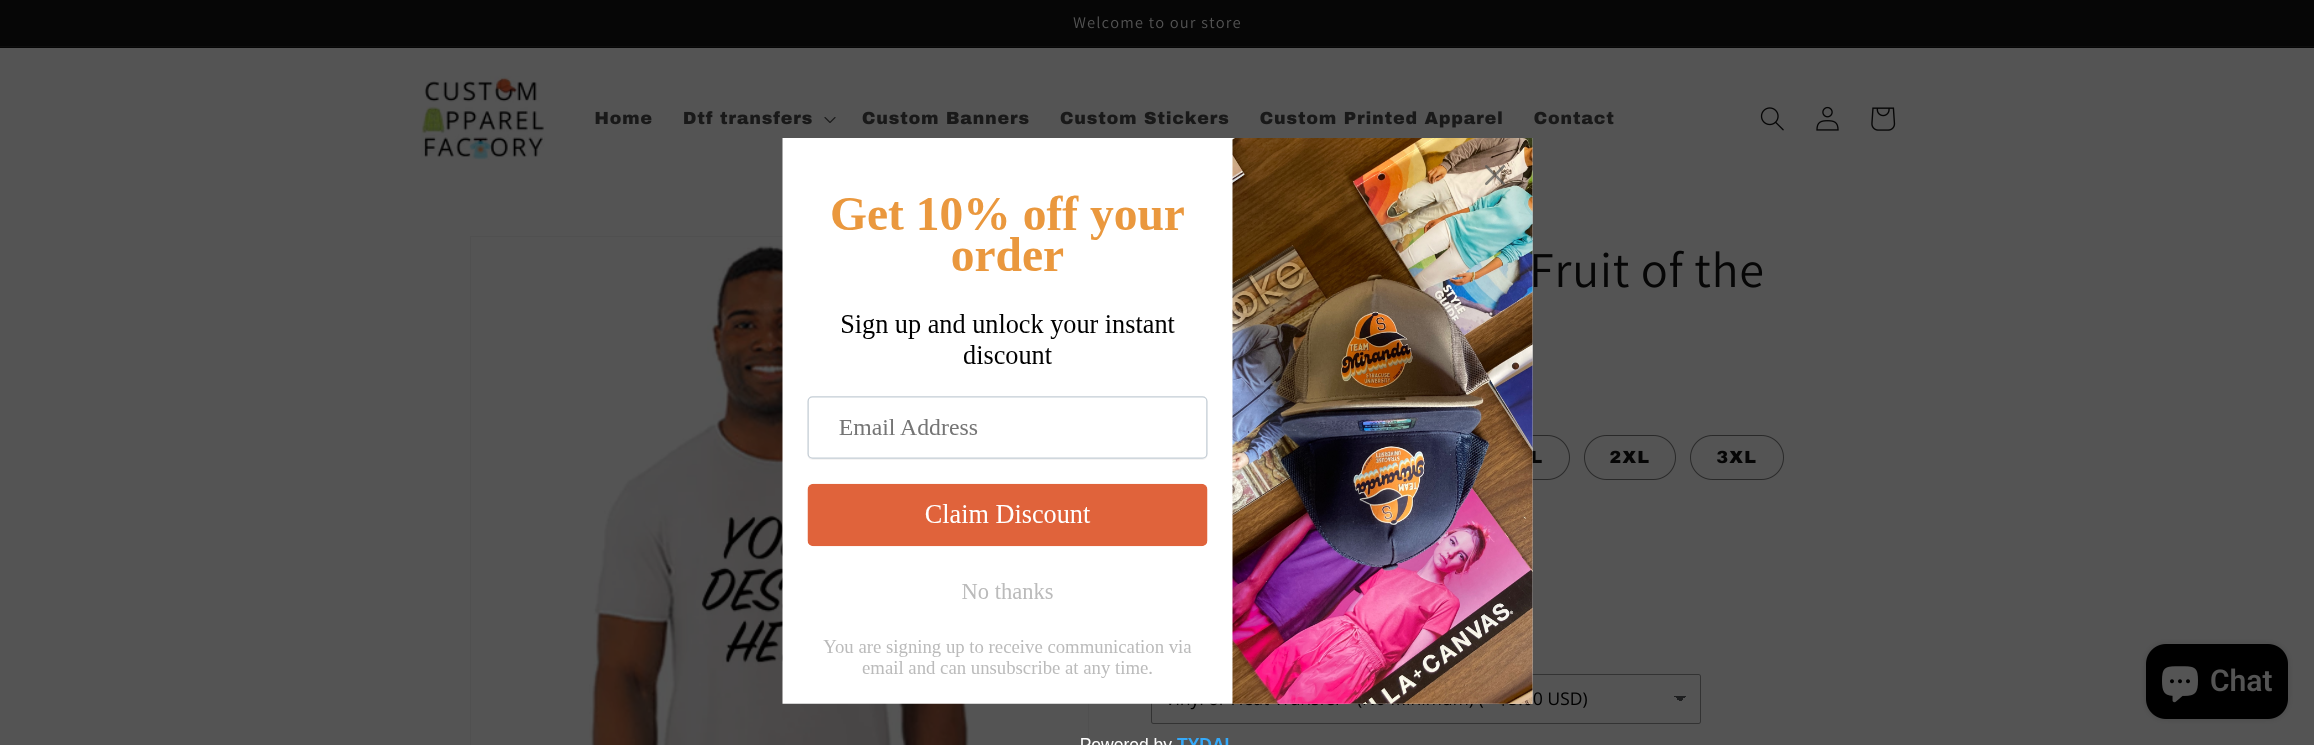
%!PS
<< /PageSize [2314 745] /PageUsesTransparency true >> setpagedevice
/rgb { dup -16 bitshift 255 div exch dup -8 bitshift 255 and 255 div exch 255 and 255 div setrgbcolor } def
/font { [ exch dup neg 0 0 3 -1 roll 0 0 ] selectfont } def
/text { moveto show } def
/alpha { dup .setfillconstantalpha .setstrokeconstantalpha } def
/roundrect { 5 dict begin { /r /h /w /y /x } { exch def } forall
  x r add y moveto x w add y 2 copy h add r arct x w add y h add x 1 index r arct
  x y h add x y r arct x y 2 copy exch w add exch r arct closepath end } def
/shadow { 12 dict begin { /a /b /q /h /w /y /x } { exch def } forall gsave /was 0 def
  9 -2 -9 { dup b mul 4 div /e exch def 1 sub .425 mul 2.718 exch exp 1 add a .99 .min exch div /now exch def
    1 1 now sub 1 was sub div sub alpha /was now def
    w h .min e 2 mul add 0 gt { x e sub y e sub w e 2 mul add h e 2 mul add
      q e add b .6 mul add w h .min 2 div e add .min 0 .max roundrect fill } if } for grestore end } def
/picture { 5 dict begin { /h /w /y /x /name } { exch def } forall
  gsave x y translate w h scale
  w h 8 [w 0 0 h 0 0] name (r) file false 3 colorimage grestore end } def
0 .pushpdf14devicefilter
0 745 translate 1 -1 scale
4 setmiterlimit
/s1 { /OpenSans-Regular 17.5 font 16#000000 rgb } def
/s2 { /Roboto-SemiBold 30 font 16#FFFFFF rgb } def
16#FFFFFF rgb
0 0 2314 745 rectfill
16#121212 rgb
0 0 2314 48 rectfill
16#252525 rgb
0 46 2314 1 rectfill
/Assistant-Regular 16.25 font
16#FFFFFF rgb
1073 28 moveto 1.25 0 (Welcome to our store) ashow
(pic2.raw) 421 76 124 84 picture
/ArchivoBlack-Regular 17.5 font
16#4D4D4D rgb
594 124 moveto 0.75 0 (Home) ashow
683 124 moveto 0.75 0 (Dtf transfers) ashow
(pic3.raw) 824 117 12 6 picture
862 124 moveto 0.75 0 (Custom Banners) ashow
1060 124 moveto 0.75 0 (Custom Stickers) ashow
1260 124 moveto 0.75 0 (Custom Printed Apparel) ashow
1534 124 moveto 0.75 0 (Contact) ashow
(pic4.raw) 1760 107 24 24 picture
(pic5.raw) 1816 106 23 25 picture
(pic6.raw) 1871 107 25 24 picture
16#F3F3F3 rgb
470.5 236.5 618 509 rectstroke
(pic7.raw) 589 243 380 502 picture
/Assistant-Regular 50 font
16#121212 rgb
1529 287 moveto 0.75 0 (Fruit of the) ashow
16#7D7D7D rgb
1489.5 435.5 80 44 22 roundrect stroke
/ArchivoBlack-Regular 17.5 font
16#121212 rgb
1530 463 moveto 1.25 0 (L) ashow
16#7D7D7D rgb
1584.5 435.5 91 44 22 roundrect stroke
16#121212 rgb
1609 463 moveto 1.25 0 (2XL) ashow
16#7D7D7D rgb
1690.5 435.5 93 44 22 roundrect stroke
16#121212 rgb
1716 463 moveto 1.25 0 (3XL) ashow
16#9A9A9A rgb
1151.5 674.5 549 49 2 roundrect stroke
16#FFFFFF rgb
1153 675 547 48 2.5 roundrect fill
gsave 1680 696 moveto 1686 696 lineto 1686 703 lineto 1680 703 lineto closepath clip newpath
<< /ShadingType 2 /ColorSpace /DeviceRGB /Coords [1680 696 1686 702] /Extend [true true] /Function << /FunctionType 3 /Domain [0 1] /Functions [<< /FunctionType 2 /Domain [0 1] /C0 [0.361 0.373 0.384] /C1 [0.361 0.373 0.384] /N 1 >> << /FunctionType 2 /Domain [0 1] /C0 [1 1 1] /C1 [1 1 1] /N 1 >>] /Bounds [0.5] /Encode [0 1 0 1] >> >> shfill grestore
gsave 1674 696 moveto 1680 696 lineto 1680 703 lineto 1674 703 lineto closepath clip newpath
<< /ShadingType 2 /ColorSpace /DeviceRGB /Coords [1674 702 1680 696] /Extend [true true] /Function << /FunctionType 3 /Domain [0 1] /Functions [<< /FunctionType 2 /Domain [0 1] /C0 [1 1 1] /C1 [1 1 1] /N 1 >> << /FunctionType 2 /Domain [0 1] /C0 [0.361 0.373 0.384] /C1 [0.361 0.373 0.384] /N 1 >>] /Bounds [0.5] /Encode [0 1 0 1] >> >> shfill grestore
s1
(0 USD\)) 1533 705 text
2146 644 142 75 20 3 0.15 shadow
2146 644 142 75 20 roundrect fill
(pic8.raw) 2162 666 36 37 picture
s2
(Chat) 2210 691 text
(pic1.raw) 0 0 2314 745 picture
.poppdf14devicefilter showpage
